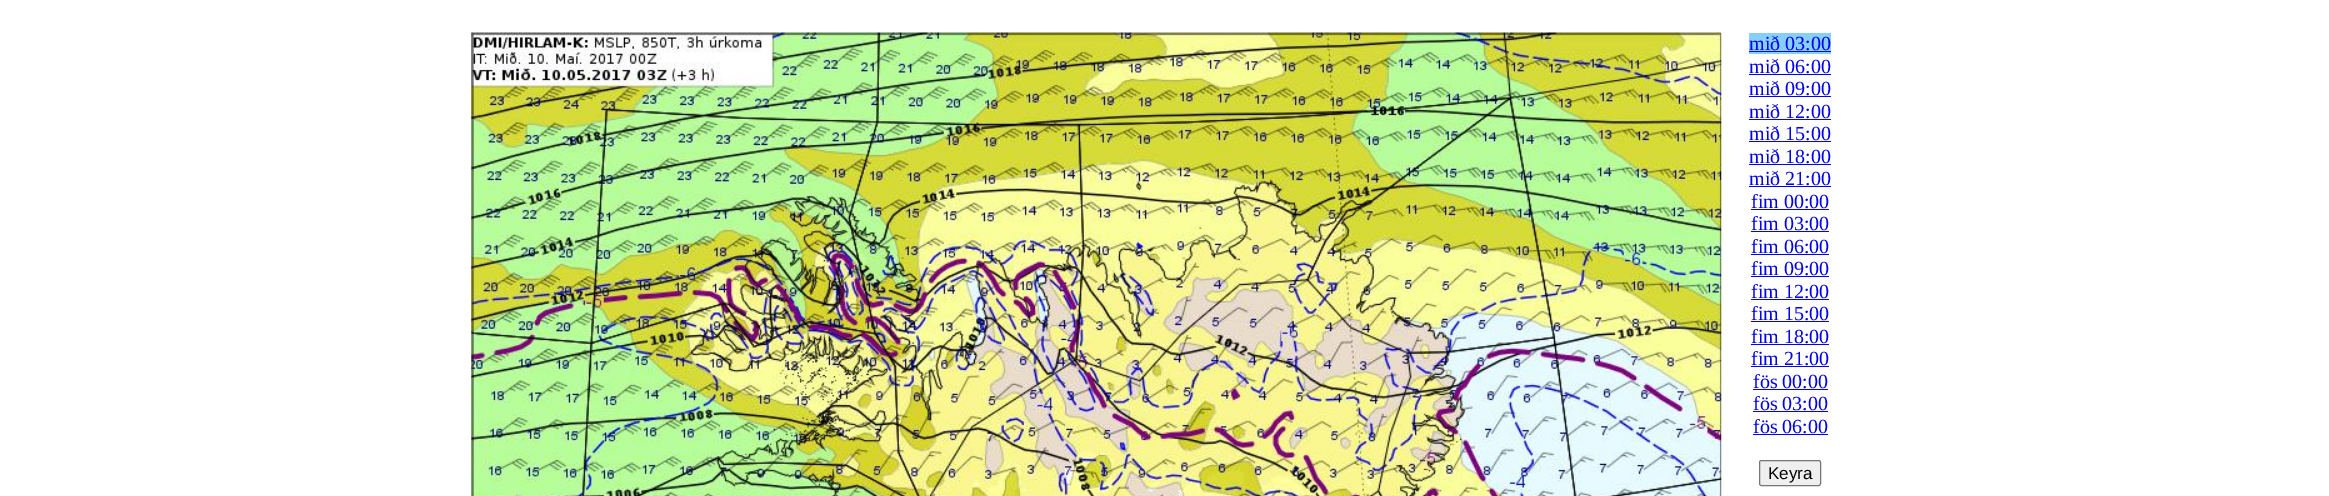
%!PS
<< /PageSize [2329 496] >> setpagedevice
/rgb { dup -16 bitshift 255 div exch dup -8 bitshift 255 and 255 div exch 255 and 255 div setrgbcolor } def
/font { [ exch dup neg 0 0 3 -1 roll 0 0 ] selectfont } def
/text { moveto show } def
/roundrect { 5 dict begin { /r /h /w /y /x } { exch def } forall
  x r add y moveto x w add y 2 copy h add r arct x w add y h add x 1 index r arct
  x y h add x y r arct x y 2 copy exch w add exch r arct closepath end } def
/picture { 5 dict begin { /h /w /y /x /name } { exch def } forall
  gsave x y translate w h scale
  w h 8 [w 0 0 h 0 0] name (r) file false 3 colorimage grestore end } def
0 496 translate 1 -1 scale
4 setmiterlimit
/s1 { /LiberationSerif-Regular 20 font 16#0000EE rgb } def
/s2 { /LiberationSans-Regular 17 font 16#000000 rgb } def
16#FFFFFF rgb
0 0 2329 496 rectfill
(pic1.raw) 471 32 1251 464 picture
16#87CEFA rgb
1749 33 82 21 rectfill
s1
(mið 03:00) 1749 50 text
1749 51 82 1 rectfill
(mið 06:00) 1749 73 text
1749 74 82 1 rectfill
(mið 09:00) 1749 95 text
1749 96 82 1 rectfill
(mið 12:00) 1749 118 text
1749 119 82 1 rectfill
(mið 15:00) 1749 140 text
1749 141 82 1 rectfill
(mið 18:00) 1749 163 text
1749 164 82 1 rectfill
(mið 21:00) 1749 185 text
1749 186 82 1 rectfill
(fim 00:00) 1751 208 text
1751 209 78 1 rectfill
(fim 03:00) 1751 230 text
1751 231 78 1 rectfill
(fim 06:00) 1751 253 text
1751 254 78 1 rectfill
(fim 09:00) 1751 275 text
1751 276 78 1 rectfill
(fim 12:00) 1751 298 text
1751 299 78 1 rectfill
(fim 15:00) 1751 320 text
1751 321 78 1 rectfill
(fim 18:00) 1751 343 text
1751 344 78 1 rectfill
(fim 21:00) 1751 365 text
1751 366 78 1 rectfill
(fös 00:00) 1753 388 text
1753 389 75 1 rectfill
(fös 03:00) 1753 410 text
1753 411 75 1 rectfill
(fös 06:00) 1753 433 text
1753 434 75 1 rectfill
16#EFEFEF rgb
1759.5 460.5 61 25 2 roundrect gsave fill grestore
16#767676 rgb
stroke
s2
(Keyra) 1768 479 text
showpage
